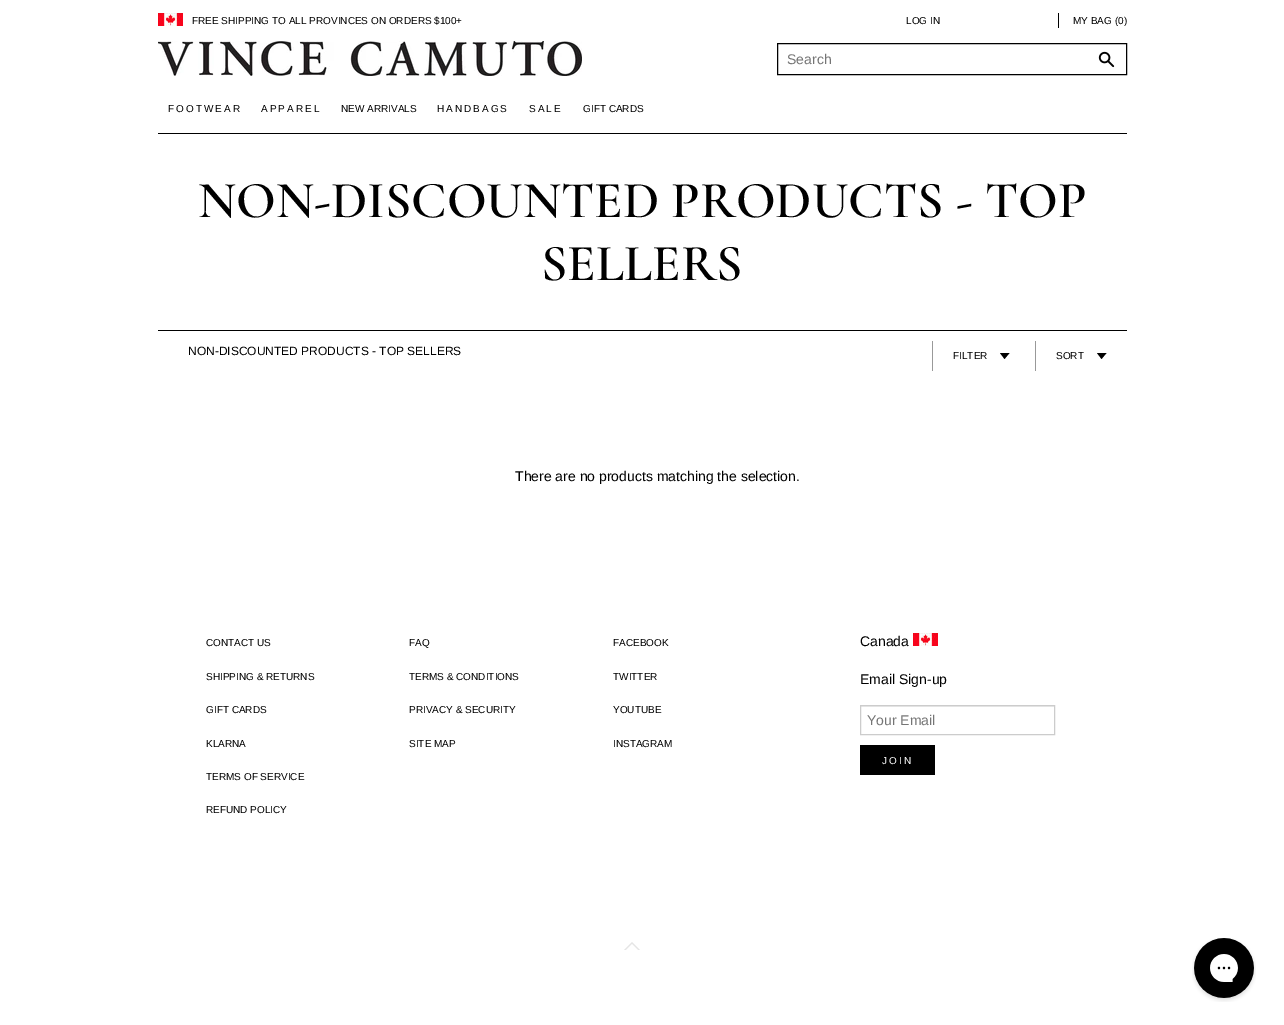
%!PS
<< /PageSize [1284 1025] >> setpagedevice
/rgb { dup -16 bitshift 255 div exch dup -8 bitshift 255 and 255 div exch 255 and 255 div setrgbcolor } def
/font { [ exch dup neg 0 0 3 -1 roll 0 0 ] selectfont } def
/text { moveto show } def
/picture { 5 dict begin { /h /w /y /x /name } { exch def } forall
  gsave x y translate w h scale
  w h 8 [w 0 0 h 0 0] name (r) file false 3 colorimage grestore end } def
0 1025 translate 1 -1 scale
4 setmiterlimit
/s1 { /LiberationSans-Regular 10 font 16#000000 rgb } def
/s2 { /LiberationSans-Regular 14 font 16#757575 rgb } def
/s3 { /CormorantGaramond-SemiBold 52 font 16#000000 rgb } def
/s4 { /LiberationSans-Regular 12 font 16#000000 rgb } def
/s5 { /LiberationSans-Regular 14 font 16#000000 rgb } def
16#FFFFFF rgb
0 0 1284 1025 rectfill
(pic1.raw) 158 13 25 13 picture
s1
(FREE SHIPPING TO ALL PROVINCES ON ORDERS $100+) 192 24 text
(LOG IN) 906 24 text
1058 13 1 15 rectfill
(MY BAG \(0\)) 1073 24 text
(pic2.raw) 158 41 424 35 picture
777.5 43.5 349 31 rectstroke
s2
(Search) 787 64 text
(pic3.raw) 1098 51 17 17 picture
/LiberationSans-Regular 10 font
16#000000 rgb
168 112 moveto 2 0 (FOOTWEAR) ashow
261 112 moveto 2 0 (APPAREL) ashow
(NEW ARRIVALS) 341 112 text
437 112 moveto 2 0 (HANDBAGS) ashow
529 112 moveto 2 0 (SALE) ashow
16#E5E5E5 rgb
640 950 moveto 624 950 lineto 632 942 lineto closepath fill
16#FFFFFF rgb
638 950 moveto 626 950 lineto 632 944 lineto closepath fill
s1
(GIFT CARDS) 583 112 text
158 133 969 1 rectfill
158 330 969 1 rectfill
s3
(NON-DISCOUNTED PRODUCTS - TOP) 198 217 text
(SELLERS) 541 280 text
s4
(NON-DISCOUNTED PRODUCTS - TOP SELLERS) 188 355 text
16#999999 rgb
932 341 1 30 rectfill
s1
(FILTER) 953 359 text
1004.5 359 moveto 1009.5 353 lineto 1000 353 lineto closepath eofill
16#999999 rgb
1035 341 1 30 rectfill
s1
(SORT) 1056 359 text
1101.5 359 moveto 1106.5 353 lineto 1097 353 lineto closepath eofill
s5
(There are no products matching the selection.) 515 481 text
s1
(CONTACT US) 206 646 text
(SHIPPING & RETURNS) 206 680 text
(GIFT CARDS) 206 713 text
(KLARNA) 206 747 text
(TERMS OF SERVICE) 206 780 text
(REFUND POLICY) 206 813 text
(FAQ) 409 646 text
(TERMS & CONDITIONS) 409 680 text
(PRIVACY & SECURITY) 409 713 text
(SITE MAP) 409 747 text
(FACEBOOK) 613 646 text
(TWITTER) 613 680 text
(YOUTUBE) 613 713 text
(INSTAGRAM) 613 747 text
s5
(Canada) 860 646 text
(pic1.raw) 913 633 25 13 picture
(Email Sign-up) 860 684 text
16#ECECEC rgb
861 706 193 1 rectfill
16#CCCCCC rgb
860.5 705.5 194 29 rectstroke
s2
(Your Email) 867 725 text
16#000000 rgb
860 745 75 30 rectfill
/LiberationSans-Regular 10 font
16#FFFFFF rgb
882 764 moveto 2 0 (JOIN) ashow
(pic4.raw) 1192 938 64 64 picture
showpage
